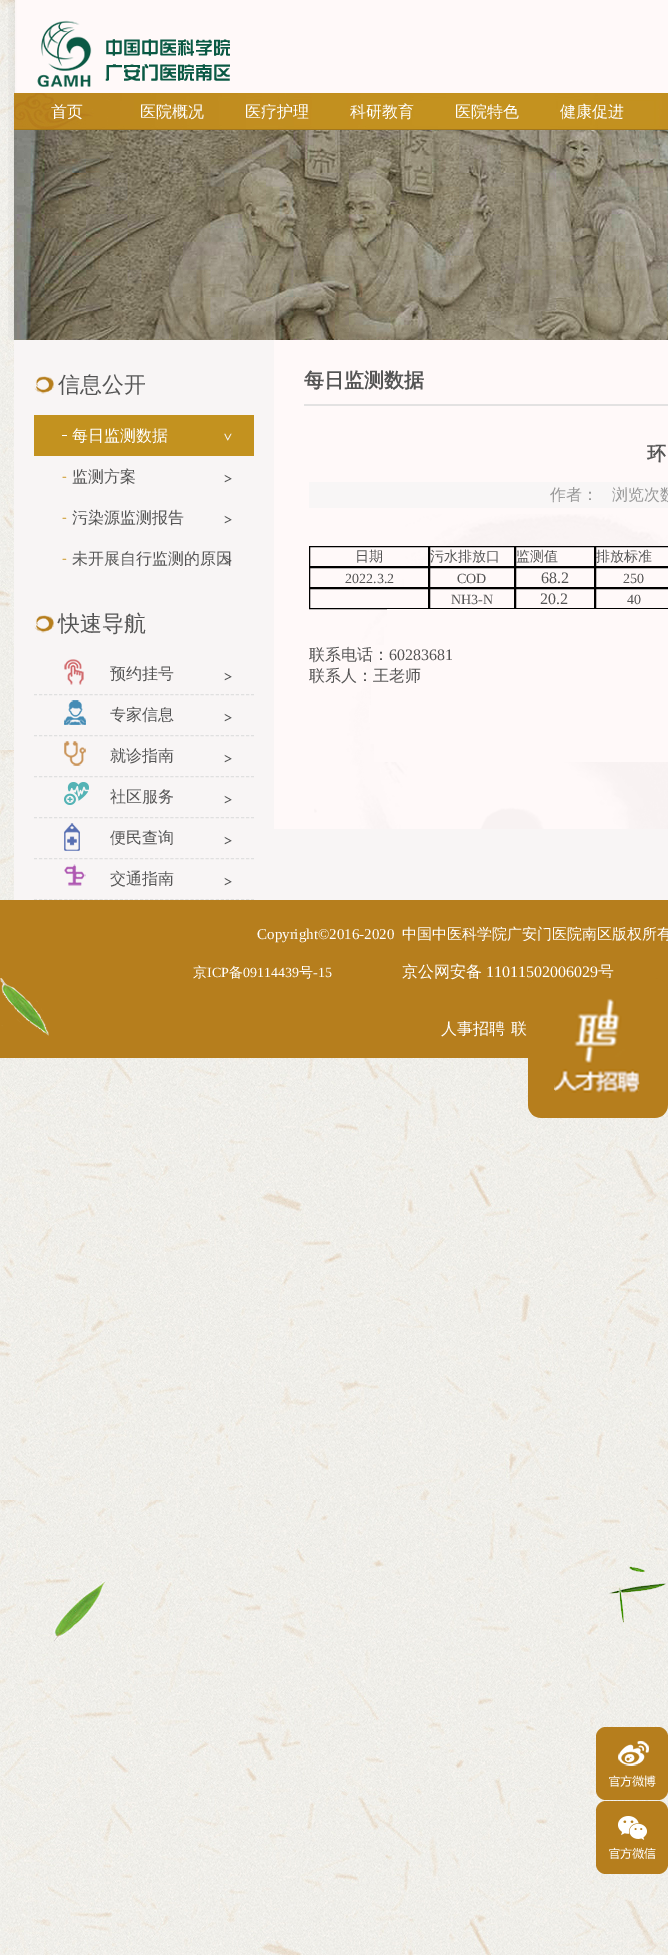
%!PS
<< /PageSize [668 1955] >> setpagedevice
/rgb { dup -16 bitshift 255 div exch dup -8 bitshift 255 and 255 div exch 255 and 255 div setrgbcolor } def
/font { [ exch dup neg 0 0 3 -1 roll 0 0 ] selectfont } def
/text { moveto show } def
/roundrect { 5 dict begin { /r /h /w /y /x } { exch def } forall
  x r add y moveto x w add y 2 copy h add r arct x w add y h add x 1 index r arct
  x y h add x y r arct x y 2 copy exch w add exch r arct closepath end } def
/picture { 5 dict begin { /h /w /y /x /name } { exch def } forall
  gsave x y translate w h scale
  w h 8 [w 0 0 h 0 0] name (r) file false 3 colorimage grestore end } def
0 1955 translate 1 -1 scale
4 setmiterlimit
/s1 { /WenQuanYiZenHei-Medium 16 font 16#FFFFFF rgb } def
/s2 { /WenQuanYiZenHei-Medium 22 font 16#555555 rgb } def
/s3 { /WenQuanYiZenHei-Medium 16 font 16#555555 rgb } def
/s4 { /WenQuanYiZenHei-Bold 20 font 16#555555 rgb } def
/s5 { /WenQuanYiZenHei-Bold 19 font 16#555555 rgb } def
/s6 { /WenQuanYiZenHei-Medium 16 font 16#999999 rgb } def
/s7 { /WenQuanYiZenHei-Medium 14 font 16#555555 rgb } def
/s8 { /LiberationSerif-Regular 14 font 16#555555 rgb } def
/s9 { /LiberationSerif-Regular 16 font 16#555555 rgb } def
/s10 { /LiberationSerif-Regular 15 font 16#FFFFFF rgb } def
/s11 { /WenQuanYiZenHei-Medium 15 font 16#FFFFFF rgb } def
/s12 { /WenQuanYiZenHei-Medium 14 font 16#FFFFFF rgb } def
/s13 { /LiberationSerif-Regular 14 font 16#FFFFFF rgb } def
/s14 { /LiberationSerif-Regular 16 font 16#FFFFFF rgb } def
16#FFFFFF rgb
0 0 668 1955 rectfill
(pic1.raw) 0 0 668 1955 picture
(pic2.raw) 8 0 660 340 picture
(pic3.raw) 37 20 193 67 picture
(pic4.raw) 14 93 654 37 picture
s1
(首页) 51 117 text
(医院概况) 140 117 text
(医疗护理) 245 117 text
(科研教育) 350 117 text
(医院特色) 455 117 text
(健康促进) 560 117 text
(pic5.raw) 14 130 654 210 picture
16#F8F5F5 rgb
14 340 654 560 rectfill
(pic6.raw) 34 376 20 18 picture
s2
(信息公开) 58 392 text
16#C3921F rgb
34 415 220 41 rectfill
(pic7.raw) 224 433 8 8 picture
s1
(每日监测数据) 72 441 text
62 435 5 1 rectfill
(pic8.raw) 224 474 8 9 picture
(pic9.raw) 62 476 5 2 picture
s3
(监测方案) 72 482 text
(pic8.raw) 224 515 8 9 picture
(pic9.raw) 62 517 5 2 picture
(污染源监测报告) 72 523 text
(pic8.raw) 224 556 8 9 picture
(pic9.raw) 62 558 5 2 picture
(未开展自行监测的原因) 72 564 text
(pic6.raw) 34 615 20 18 picture
s2
(快速导航) 58 631 text
(pic8.raw) 224 672 8 9 picture
16#E0E0E0 rgb
[3 2.05] 0 setdash
34 694.5 moveto 254 694.5 lineto stroke
(pic10.raw) 64 659 20 26 picture
s3
(预约挂号) 110 679 text
(pic8.raw) 224 713 8 9 picture
16#E0E0E0 rgb
34 735.5 moveto 254 735.5 lineto stroke
(pic11.raw) 64 700 22 25 picture
s3
(专家信息) 110 720 text
(pic8.raw) 224 754 8 9 picture
16#E0E0E0 rgb
34 776.5 moveto 254 776.5 lineto stroke
(pic12.raw) 64 741 22 25 picture
s3
(就诊指南) 110 761 text
(pic8.raw) 224 795 8 9 picture
16#E0E0E0 rgb
34 817.5 moveto 254 817.5 lineto stroke
(pic13.raw) 64 782 25 23 picture
s3
(社区服务) 110 802 text
(pic8.raw) 224 836 8 9 picture
16#E0E0E0 rgb
34 858.5 moveto 254 858.5 lineto stroke
(pic14.raw) 64 823 16 28 picture
s3
(便民查询) 110 843 text
(pic8.raw) 224 877 8 9 picture
16#E0E0E0 rgb
34 899.5 moveto 254 899.5 lineto stroke
(pic15.raw) 64 864 22 22 picture
s3
(交通指南) 110 884 text
16#FFF9F9 rgb
274 340 394 489 rectfill
16#E3E2E2 rgb
304 404 364 2 rectfill
s4
(每日监测数据) 304 387 text
(pic16.raw) 314 514 354 315 picture
s5
(环) 647 460 text
16#F8F6F6 rgb
309 482 359 26 rectfill
s6
(作者：) 550 500 text
(浏览次数) 612 500 text
16#FFF9F9 rgb
423 560 5 6 rectfill
16#000000 rgb
[] 0 setdash
309.5 546.5 119 20 rectstroke
s7
(日期) 355 561 text
16#FFF9F9 rgb
429.5 546.5 moveto 514.5 546.5 lineto 514.5 566.5 lineto 429.5 566.5 lineto closepath gsave fill grestore
16#000000 rgb
stroke
s7
(污水排放口) 430 561 text
16#FFF9F9 rgb
515.5 546.5 moveto 594.5 546.5 lineto 594.5 566.5 lineto 515.5 566.5 lineto closepath gsave fill grestore
16#000000 rgb
stroke
s7
(监测值) 516 561 text
16#FFF9F9 rgb
595.5 546.5 moveto 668.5 546.5 lineto 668.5 566.5 lineto 595.5 566.5 lineto closepath gsave fill grestore
16#000000 rgb
stroke
s7
(排放标准) 596 561 text
16#FFF9F9 rgb
404 568 24 19 rectfill
16#000000 rgb
309.5 567.5 119 20 rectstroke
s8
(2022.3.2) 345 583 text
16#FFF9F9 rgb
429.5 567.5 moveto 514.5 567.5 lineto 514.5 587.5 lineto 429.5 587.5 lineto closepath gsave fill grestore
16#000000 rgb
stroke
s8
(COD) 457 583 text
16#FFF9F9 rgb
515.5 567.5 moveto 594.5 567.5 lineto 594.5 587.5 lineto 515.5 587.5 lineto closepath gsave fill grestore
16#000000 rgb
stroke
s9
(68.2) 541 583 text
16#FFF9F9 rgb
595.5 567.5 moveto 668.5 567.5 lineto 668.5 587.5 lineto 595.5 587.5 lineto closepath gsave fill grestore
16#000000 rgb
stroke
s8
(250) 623 583 text
16#FFF9F9 rgb
389 589 39 19 rectfill
16#000000 rgb
309.5 588.5 119 20 rectstroke
16#FFF9F9 rgb
429.5 588.5 moveto 514.5 588.5 lineto 514.5 608.5 lineto 429.5 608.5 lineto closepath gsave fill grestore
16#000000 rgb
stroke
s8
(NH3-N) 451 604 text
16#FFF9F9 rgb
515.5 588.5 moveto 594.5 588.5 lineto 594.5 608.5 lineto 515.5 608.5 lineto closepath gsave fill grestore
16#000000 rgb
stroke
s9
(20.2) 540 604 text
16#FFF9F9 rgb
595.5 588.5 moveto 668.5 588.5 lineto 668.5 608.5 lineto 595.5 608.5 lineto closepath gsave fill grestore
16#000000 rgb
stroke
s8
(40) 627 604 text
16#FFF9F9 rgb
387 609 281 18 rectfill
384 627 284 18 rectfill
377 645 291 21 rectfill
s3
(联系电话：) 309 660 text
s9
(60283681) 389 660 text
16#FFF9F9 rgb
371 666 297 39 rectfill
s3
(联系人：王老师) 309 681 text
16#FFF9F9 rgb
369 705 299 18 rectfill
370 723 298 21 rectfill
374 744 294 18 rectfill
16#B67E1D rgb
0 900 668 158 rectfill
(pic17.raw) 0 978 49 58 picture
(pic18.raw) 33 1568 74 78 picture
(pic19.raw) 608 1566 59 57 picture
s10
(Copyright©2016-2020) 257 939 text
s11
(中国中医科学院广安门医院南区版权所有) 402 939 text
s12
(京) 193 977 text
s13
(ICP) 207 977 text
s12
(备) 229 977 text
s13
(09114439) 243 977 text
s12
(号) 299 977 text
s13
(-15) 313 977 text
s1
(京公网安备) 402 977 text
s14
(11011502006029) 486 977 text
s1
(号) 598 977 text
(人事招聘) 441 1034 text
(联) 511 1034 text
(pic20.raw) 528 978 140 140 picture
16#B67E1D rgb
596 1727 72 73 10 roundrect fill
(pic21.raw) 609 1741 47 46 picture
596 1801 72 73 10 roundrect fill
(pic22.raw) 609 1816 47 43 picture
showpage
